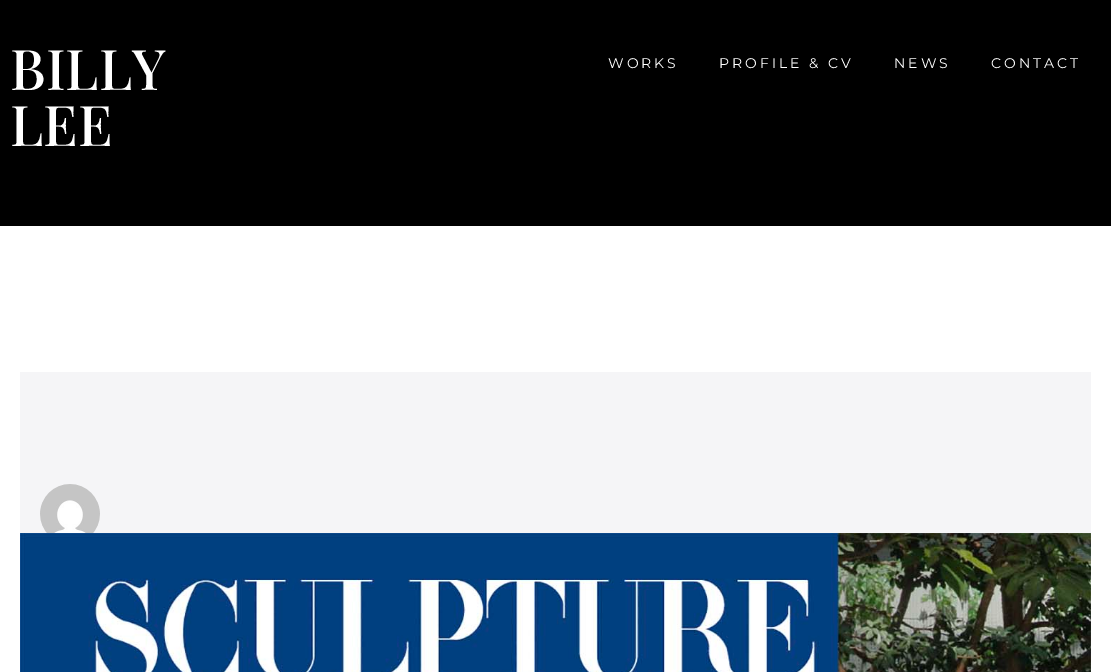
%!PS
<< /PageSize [1111 672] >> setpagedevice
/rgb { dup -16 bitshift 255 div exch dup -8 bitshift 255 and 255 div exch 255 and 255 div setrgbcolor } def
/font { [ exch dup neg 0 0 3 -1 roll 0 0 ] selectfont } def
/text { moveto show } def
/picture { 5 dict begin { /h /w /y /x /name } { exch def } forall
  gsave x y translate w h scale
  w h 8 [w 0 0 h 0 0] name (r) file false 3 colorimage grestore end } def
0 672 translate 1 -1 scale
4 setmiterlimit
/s1 { /PlayfairDisplay-Medium 56 font 16#FFFFFF rgb } def
16#FFFFFF rgb
0 0 1111 672 rectfill
16#000000 rgb
0 0 1111 226 rectfill
s1
(BILLY) 10 90 text
(LEE) 10 146 text
/Montserrat-Regular 14 font
608 68 moveto 3 0 (WORKS) ashow
719 68 moveto 3 0 (PROFILE & CV) ashow
894 68 moveto 3 0 (NEWS) ashow
991 68 moveto 3 0 (CONTACT) ashow
16#F5F5F7 rgb
20 372 1071 161 rectfill
(pic1.raw) 40 484 60 49 picture
(pic2.raw) 20 533 1071 139 picture
showpage
